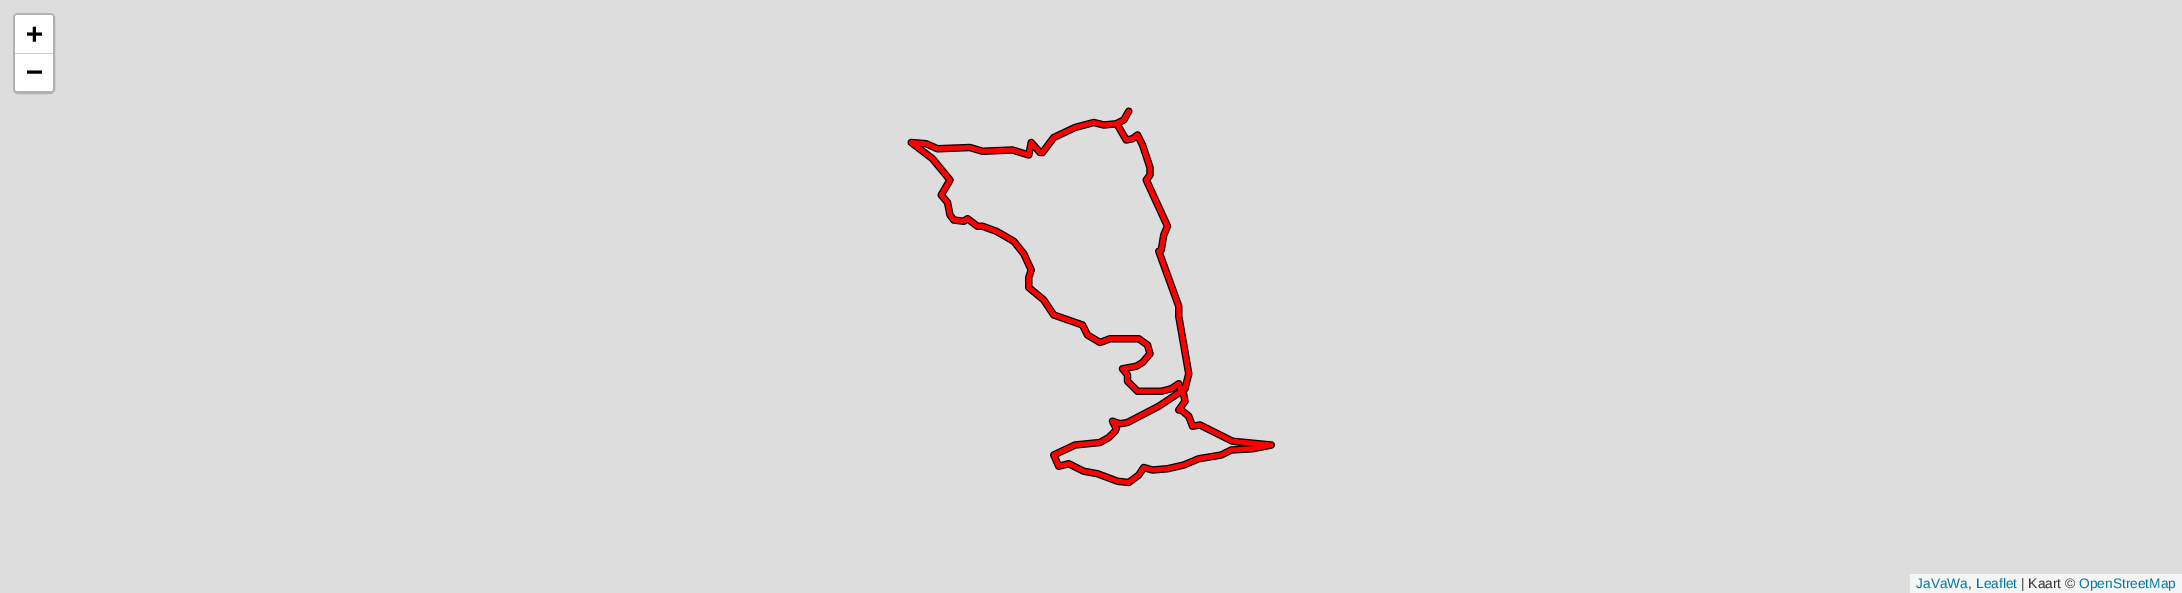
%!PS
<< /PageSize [2182 593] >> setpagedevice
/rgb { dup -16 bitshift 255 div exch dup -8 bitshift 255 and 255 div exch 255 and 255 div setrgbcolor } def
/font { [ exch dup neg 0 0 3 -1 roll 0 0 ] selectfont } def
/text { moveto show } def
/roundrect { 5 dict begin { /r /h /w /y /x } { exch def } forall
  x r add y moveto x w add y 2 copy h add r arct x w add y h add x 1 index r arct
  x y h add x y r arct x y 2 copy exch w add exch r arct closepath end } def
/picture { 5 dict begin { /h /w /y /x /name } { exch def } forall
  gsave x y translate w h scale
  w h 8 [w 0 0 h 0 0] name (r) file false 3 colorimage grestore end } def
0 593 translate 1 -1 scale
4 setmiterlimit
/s1 { /DejaVuSansMono-Bold 28 font 16#000000 rgb } def
/s2 { /LiberationSans-Regular 13.75 font 16#0078A8 rgb } def
/s3 { /LiberationSans-Regular 13.75 font 16#333333 rgb } def
16#DDDDDD rgb
0 0 2182 593 rectfill
16#B1B1B1 rgb
3 setlinewidth
14.5 14.5 39 78 3.5 roundrect stroke
16#FFFFFF rgb
17.5 15 moveto 50.5 15 lineto 52 15 53 16 53 17.5 curveto 53 54 lineto 15 54 lineto 15 17.5 lineto 15 16 16 15 17.5 15 curveto closepath fill
16#CCCCCC rgb
15 53 38 1 rectfill
s1
(+) 26 43 text
16#FFFFFF rgb
15 54 moveto 53 54 lineto 53 88.5 lineto 53 90 52 91 50.5 91 curveto 17.5 91 lineto 16 91 15 90 15 88.5 curveto closepath fill
s1
(−) 26 81 text
16#F5F5F5 rgb
1910 574 272 19 rectfill
s2
(JaVaWa) 1916 588 text
s3
(,) 1968 588 text
s2
(Leaflet) 1976 588 text
s3
(| Kaart ©) 2021 588 text
s2
(OpenStreetMap) 2079 588 text
(pic1.raw) 907 107 368 380 picture
showpage
